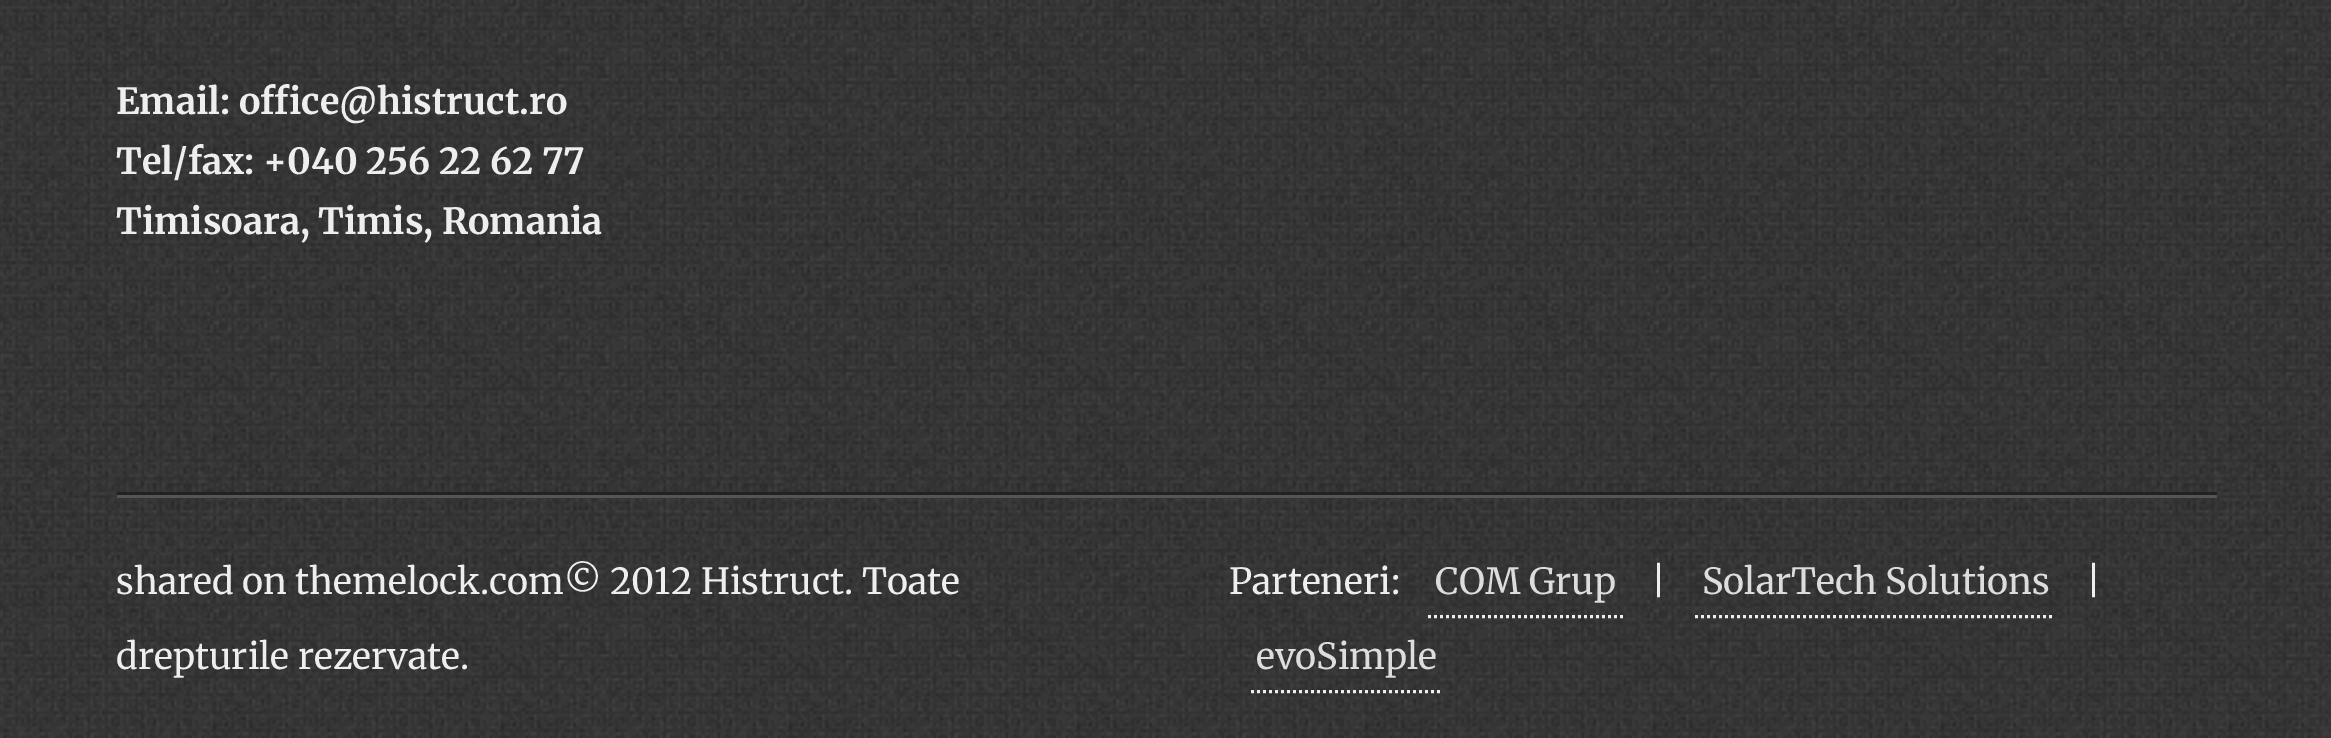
%!PS
<< /PageSize [2331 738] >> setpagedevice
/rgb { dup -16 bitshift 255 div exch dup -8 bitshift 255 and 255 div exch 255 and 255 div setrgbcolor } def
/font { [ exch dup neg 0 0 3 -1 roll 0 0 ] selectfont } def
/text { moveto show } def
/picture { 5 dict begin { /h /w /y /x /name } { exch def } forall
  gsave x y translate w h scale
  w h 8 [w 0 0 h 0 0] name (r) file false 3 colorimage grestore end } def
0 738 translate 1 -1 scale
4 setmiterlimit
/s1 { /Merriweather-Bold 36 font 16#EEEEEE rgb } def
/s2 { /Merriweather-Regular 36 font 16#EEEEEE rgb } def
/s3 { /Merriweather-Regular 36 font 16#DDDDDD rgb } def
16#FFFFFF rgb
0 0 2331 738 rectfill
(pic1.raw) 0 0 2331 738 picture
(pic2.raw) 0 0 2331 738 picture
s1
(Email: office@histruct.ro) 116 114 text
(Tel/fax: +040 256 22 62 77) 116 174 text
(Timisoara, Timis, Romania) 116 234 text
16#222222 rgb
117 492 2100 3 rectfill
16#555555 rgb
117 495 2100 3 rectfill
s2
(shared on themelock.com© 2012 Histruct. Toate) 116 594 text
gsave
117 495 2100 243 rectclip
(drepturile rezervate.) 116 669 text
grestore
(Parteneri:) 1229 594 text
3 setlinewidth
[3 3] 0 setdash
1428 616.5 moveto 1623 616.5 lineto stroke
s3
(COM Grup) 1435 594 text
s2
(|) 1651 594 text
1695 616.5 moveto 2055 616.5 lineto stroke
s3
(SolarTech Solutions) 1702 594 text
s2
(|) 2086 594 text
1251 691.5 moveto 1443 691.5 lineto stroke
s3
(evoSimple) 1256 669 text
showpage
